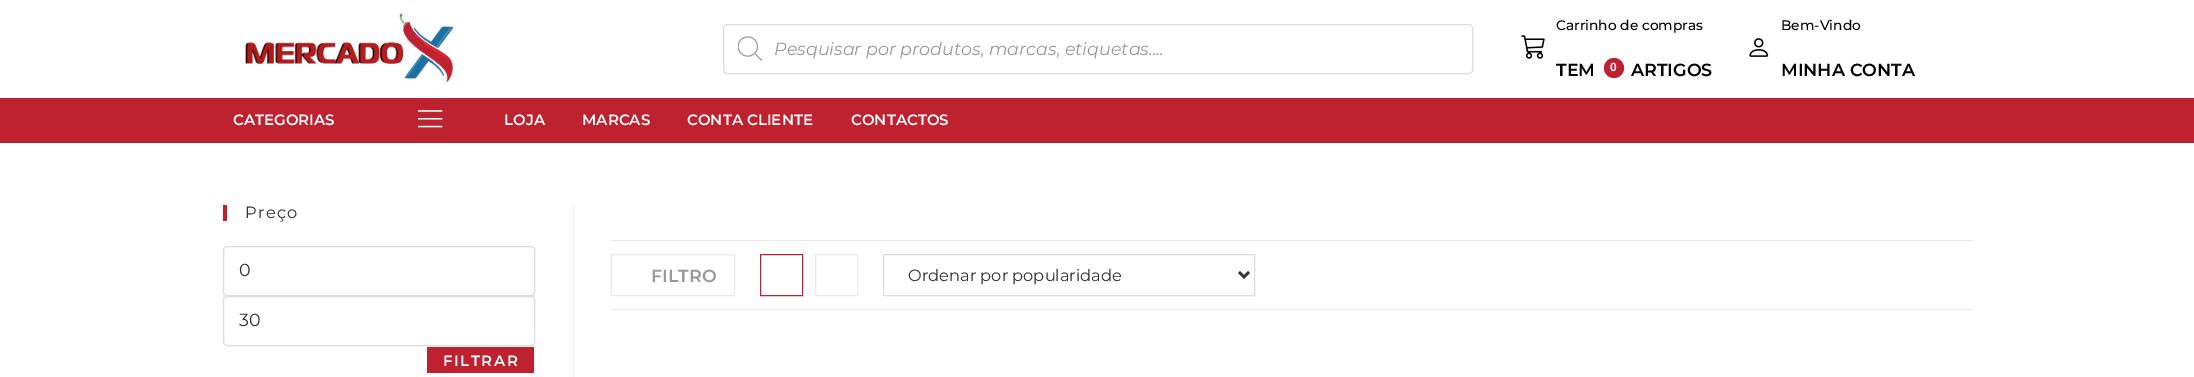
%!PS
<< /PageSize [2194 377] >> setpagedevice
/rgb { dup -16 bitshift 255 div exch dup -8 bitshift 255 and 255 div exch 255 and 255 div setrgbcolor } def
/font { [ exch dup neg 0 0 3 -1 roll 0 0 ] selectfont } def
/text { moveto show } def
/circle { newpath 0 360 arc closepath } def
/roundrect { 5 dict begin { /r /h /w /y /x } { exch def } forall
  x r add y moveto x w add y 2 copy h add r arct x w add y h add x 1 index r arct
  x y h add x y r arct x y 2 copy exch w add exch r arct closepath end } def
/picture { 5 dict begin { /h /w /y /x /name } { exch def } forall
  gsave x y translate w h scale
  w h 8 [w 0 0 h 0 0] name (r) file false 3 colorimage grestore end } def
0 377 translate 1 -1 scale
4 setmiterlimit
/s1 { /Montserrat-Italic 17.5 font 16#999999 rgb } def
/s2 { /Montserrat-Medium 13.75 font 16#000000 rgb } def
/s3 { /Montserrat-SemiBold 17.5 font 16#000000 rgb } def
/s4 { /LiberationSans-Bold 12 font 16#FFFFFF rgb } def
/s5 { /Montserrat-SemiBold 15 font 16#FFFFFF rgb } def
/s6 { /Montserrat-Regular 17.5 font 16#333333 rgb } def
/s7 { /Montserrat-SemiBold 17.5 font 16#999999 rgb } def
/s8 { /Montserrat-Regular 16.25 font 16#333333 rgb } def
16#FFFFFF rgb
0 0 2194 377 rectfill
(pic1.raw) 245 13 209 70 picture
16#DDDDDD rgb
723.5 24.5 749 49 3.5 roundrect stroke
(pic2.raw) 738 36 25 25 picture
s1
(Pesquisar por produtos, marcas, etiquetas....) 774 55 text
(pic3.raw) 1521 35 24 24 picture
s2
(Carrinho de compras) 1556 30 text
s3
(TEM) 1556 76 text
16#BE2130 rgb
1614 68 10 circle fill
s4
(0) 1610 71 text
s3
(ARTIGOS) 1631 76 text
(pic4.raw) 1749 38 20 19 picture
s2
(Bem-Vindo) 1781 30 text
s3
(MINHA CONTA) 1781 76 text
16#BE2130 rgb
0 98 2194 45 rectfill
s5
(CATEGORIAS) 233 125 text
(pic5.raw) 418 110 25 18 picture
(LOJA) 504 125 text
(MARCAS) 582 125 text
(CONTA CLIENTE) 687 125 text
(CONTACTOS) 851 125 text
16#BE2130 rgb
223 205 4 16 rectfill
/Montserrat-Regular 16.25 font
16#333333 rgb
245 218 moveto 1.25 0 (Preço) ashow
16#DDDDDD rgb
223.5 246.5 311 49 3.5 roundrect stroke
s6
(0) 239 276 text
16#DDDDDD rgb
223.5 296.5 311 49 3.5 roundrect stroke
s6
(30) 239 326 text
16#BE2130 rgb
427 347 107 26 rectfill
/Montserrat-SemiBold 15 font
16#FFFFFF rgb
443 366 moveto 1.5 0 (FILTRAR) ashow
16#F1F1F1 rgb
573 205 1 172 rectfill
16#EAEAEA rgb
611 240 1362 1 rectfill
611 309 1362 1 rectfill
611.5 254.5 123 41 rectstroke
s7
(FILTRO) 651 282 text
16#BE2130 rgb
760.5 254.5 42 41 rectstroke
16#EAEAEA rgb
815.5 254.5 42 41 rectstroke
16#DDDDDD rgb
883.5 254.5 371 41 rectstroke
16#333333 rgb
2.5 setlinewidth
1239 272 moveto 1244 277 lineto 1249 272 lineto stroke
s8
(Ordenar por popularidade) 908 281 text
showpage
